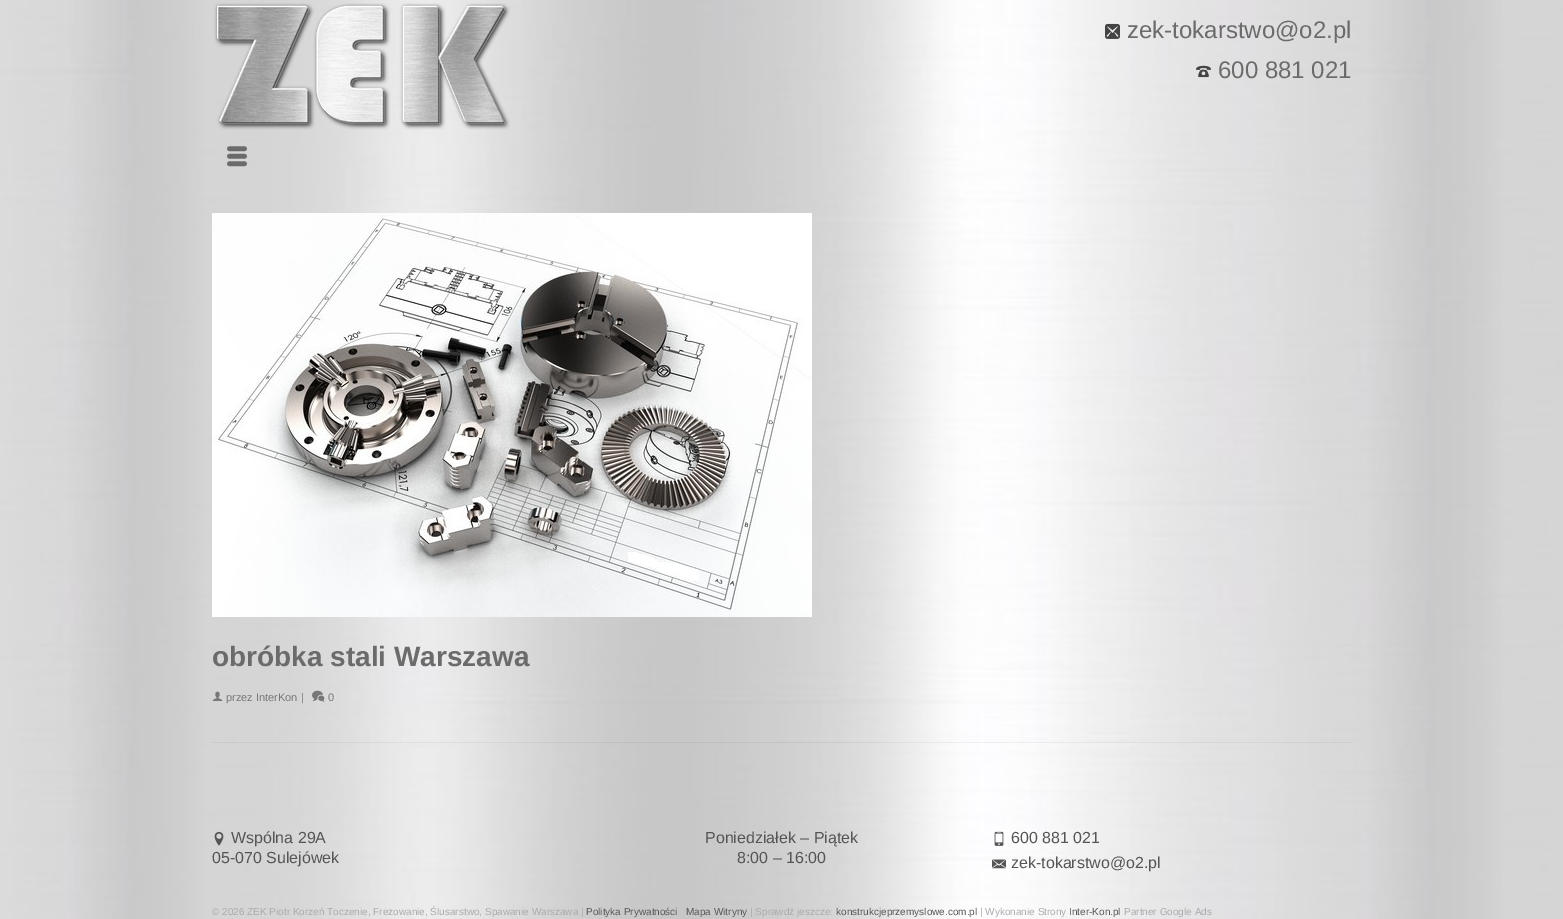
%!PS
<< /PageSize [1563 919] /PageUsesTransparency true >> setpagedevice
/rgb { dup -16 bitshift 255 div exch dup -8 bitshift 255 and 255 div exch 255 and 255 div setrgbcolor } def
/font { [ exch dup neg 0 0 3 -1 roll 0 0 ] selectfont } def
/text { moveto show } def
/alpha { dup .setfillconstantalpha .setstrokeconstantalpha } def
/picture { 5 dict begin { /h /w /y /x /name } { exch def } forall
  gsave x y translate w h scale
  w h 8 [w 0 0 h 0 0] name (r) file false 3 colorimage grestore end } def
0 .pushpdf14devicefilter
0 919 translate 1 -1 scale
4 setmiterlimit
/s1 { /LiberationSans-Regular 24 font 16#6B6B6B rgb } def
/s2 { /LiberationSans-Bold 28 font 16#6B6B6B rgb } def
/s3 { /LiberationSans-Regular 11 font 16#777777 rgb } def
/s4 { /LiberationSans-Regular 16 font 16#555555 rgb } def
/s5 { /LiberationSans-Regular 10 font 16#AAAAAA rgb } def
/s6 { /LiberationSans-Regular 10 font 16#555555 rgb } def
16#FFFFFF rgb
0 0 1563 919 rectfill
(pic1.raw) 0 0 1563 919 picture
(pic2.raw) 214 3 296 127 picture
(pic3.raw) 1105 23 15 16 picture
s1
(zek-tokarstwo@o2.pl) 1127 38 text
(pic4.raw) 1196 65 15 13 picture
(600 881 021) 1218 78 text
(pic5.raw) 227 146 20 21 picture
(pic6.raw) 212 213 600 404 picture
s2
(obróbka stali Warszawa) 212 666 text
(pic7.raw) 212 691 11 10 picture
s3
(przez InterKon |) 226 701 text
(pic8.raw) 312 690 13 12 picture
(0) 328 701 text
0.05 alpha
16#000000 rgb
212 742 1140 1 rectfill
1 alpha
(pic9.raw) 214 831 10 15 picture
s4
(Wspólna 29A) 231 843 text
(05-070 Sulejówek) 212 863 text
(Poniedziałek – Piątek) 705 843 text
(8:00 – 16:00) 737 863 text
(pic10.raw) 994 831 10 15 picture
(600 881 021) 1011 843 text
(pic11.raw) 992 859 14 10 picture
(zek-tokarstwo@o2.pl) 1011 868 text
s5
(© 2026 ZEK Piotr Korzeń Toczenie, Frezowanie, Ślusarstwo, Spawanie Warszawa |) 212 915 text
s6
(Polityka Prywatności) 586 915 text
(Mapa Witryny) 686 915 text
s5
(| Sprawdź jeszcze:) 750 915 text
s6
(konstrukcjeprzemyslowe.com.pl) 836 915 text
s5
(| Wykonanie Strony) 980 915 text
s6
(Inter-Kon.pl) 1069 915 text
s5
(Partner Google Ads) 1124 915 text
.poppdf14devicefilter showpage
